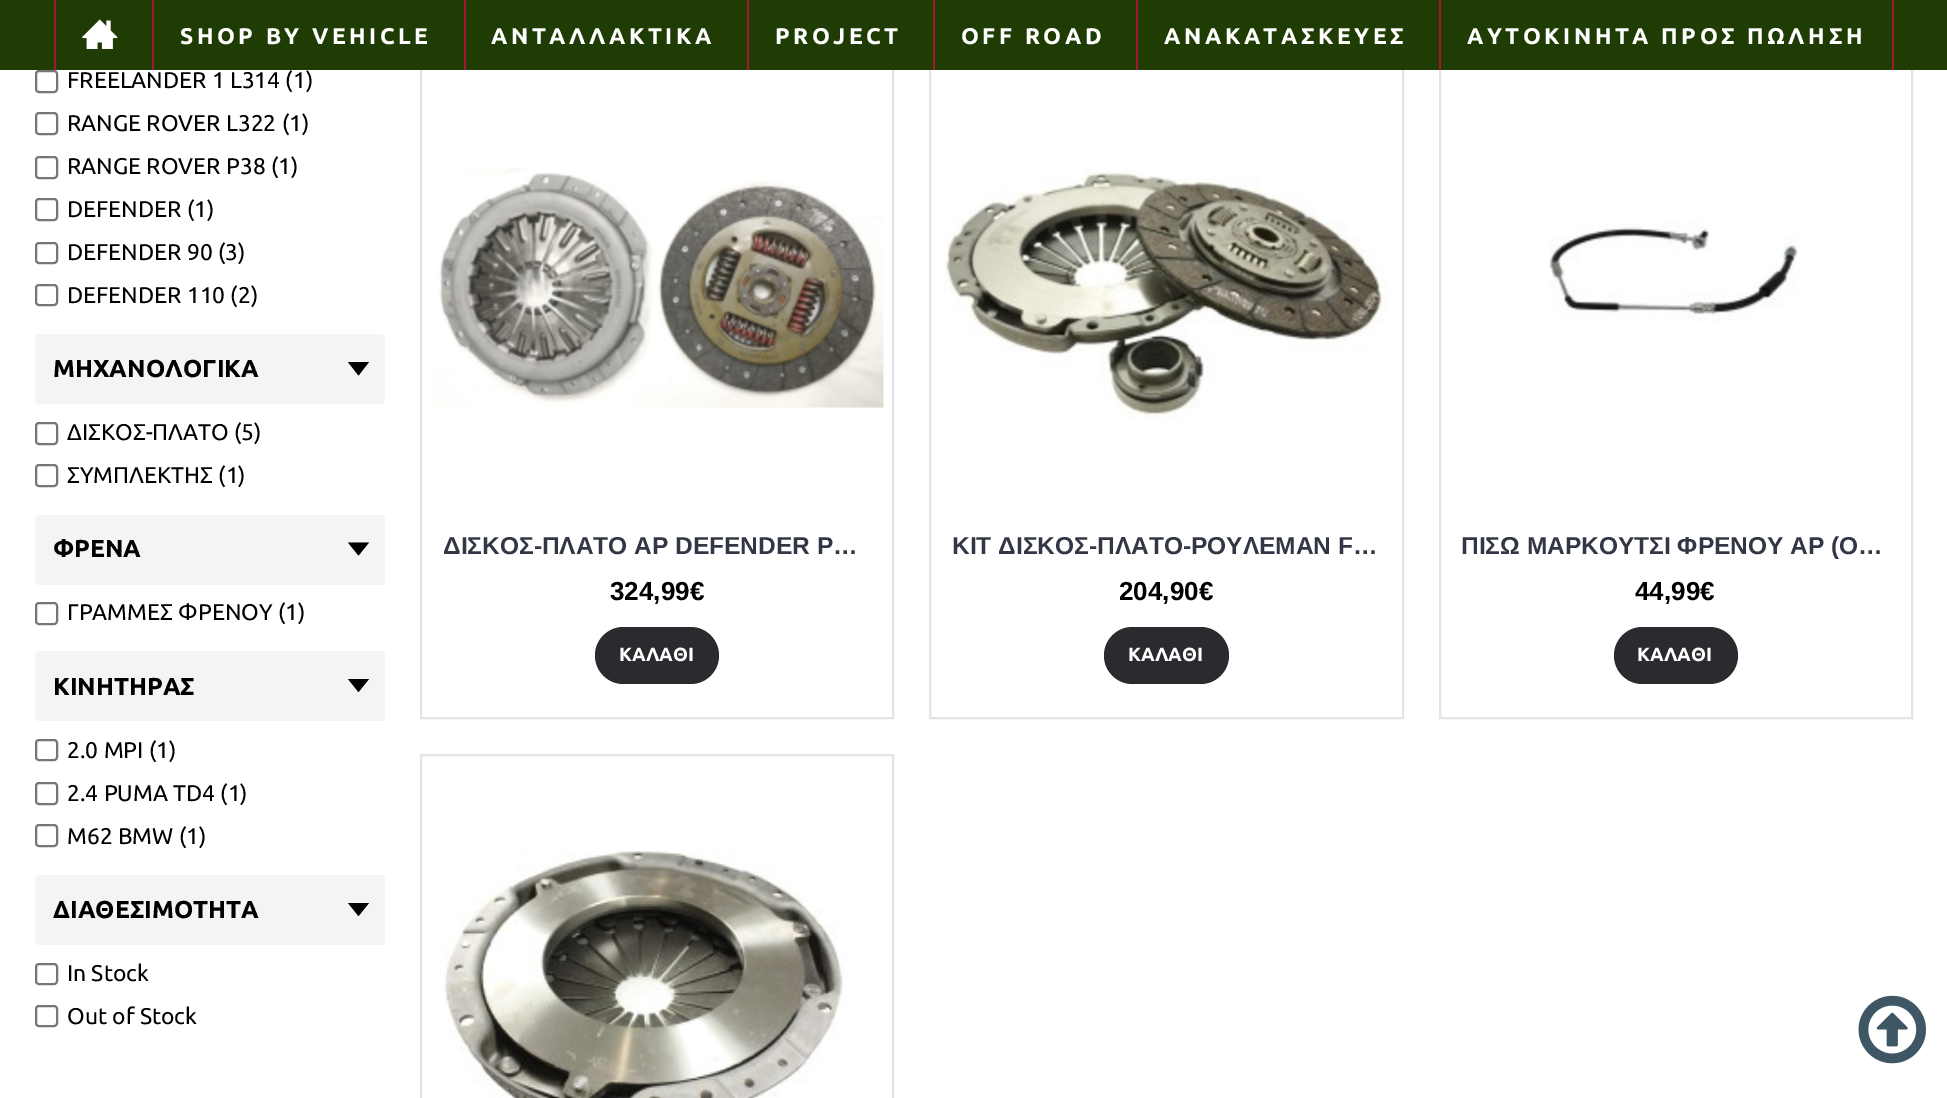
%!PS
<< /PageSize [1947 1098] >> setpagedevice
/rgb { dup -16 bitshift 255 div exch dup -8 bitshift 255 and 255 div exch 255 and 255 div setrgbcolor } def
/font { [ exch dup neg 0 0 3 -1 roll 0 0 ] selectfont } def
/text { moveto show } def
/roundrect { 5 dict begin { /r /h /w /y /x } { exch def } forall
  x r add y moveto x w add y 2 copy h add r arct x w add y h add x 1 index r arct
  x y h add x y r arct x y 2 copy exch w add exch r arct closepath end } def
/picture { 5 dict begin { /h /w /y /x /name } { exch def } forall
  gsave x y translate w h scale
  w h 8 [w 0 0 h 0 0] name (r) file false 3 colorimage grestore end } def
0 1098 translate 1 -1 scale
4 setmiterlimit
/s1 { /Ubuntu-Regular 22.75 font 16#000000 rgb } def
/s2 { /Ubuntu-Bold 24.5 font 16#000000 rgb } def
/s3 { /LiberationSans-Bold 24.5 font 16#333745 rgb } def
/s4 { /LiberationSans-Bold 26 font 16#000000 rgb } def
/s5 { /Ubuntu-Bold 19 font 16#FFFFFF rgb } def
16#FFFFFF rgb
0 0 1947 1098 rectfill
16#E4E4E4 rgb
2 setlinewidth
421 52 472 666 rectstroke
930 52 473 666 rectstroke
1440 52 472 666 rectstroke
16#1E3C03 rgb
0 0 1947 70 rectfill
16#A41733 rgb
54 0 2 70 rectfill
(pic1.raw) 82 19 36 30 picture
152 0 2 70 rectfill
/Ubuntu-Bold 22.75 font
16#FFFFFF rgb
180 44 moveto 3.5 0 (SHOP BY VEHICLE) ashow
16#A41733 rgb
464 0 2 70 rectfill
16#FFFFFF rgb
491 44 moveto 3.5 0 (ΑΝΤΑΛΛΑΚΤΙΚΑ) ashow
16#A41733 rgb
747 0 2 70 rectfill
16#FFFFFF rgb
775 44 moveto 3.5 0 (PROJECT) ashow
16#A41733 rgb
933 0 2 70 rectfill
16#FFFFFF rgb
961 44 moveto 3.5 0 (OFF ROAD) ashow
16#A41733 rgb
1136 0 2 70 rectfill
16#FFFFFF rgb
1164 44 moveto 3.5 0 (ΑΝΑΚΑΤΑΣΚΕΥΕΣ) ashow
16#A41733 rgb
1892 0 2 70 rectfill
1439 0 2 70 rectfill
16#FFFFFF rgb
1467 44 moveto 3.5 0 (ΑΥΤΟΚΙΝΗΤΑ ΠΡΟΣ ΠΩΛΗΣΗ) ashow
16#767676 rgb
36 71 21 21 3 roundrect stroke
s1
(FREELANDER 1 L314 \(1\)) 67 88 text
16#767676 rgb
36 113 21 21 3 roundrect stroke
s1
(RANGE ROVER L322 \(1\)) 67 131 text
16#767676 rgb
36 157 21 21 3 roundrect stroke
s1
(RANGE ROVER P38 \(1\)) 67 174 text
16#767676 rgb
36 199 21 21 3 roundrect stroke
s1
(DEFENDER \(1\)) 67 217 text
16#767676 rgb
36 243 21 20 3 roundrect stroke
s1
(DEFENDER 90 \(3\)) 67 260 text
16#767676 rgb
36 285 21 20 3 roundrect stroke
s1
(DEFENDER 110 \(2\)) 67 303 text
16#F4F4F4 rgb
35 334 350 70 4 roundrect fill
s2
(ΜΗΧΑΝΟΛΟΓΙΚΑ) 53 377 text
369 362 moveto 348 362 lineto 358.5 375.5 lineto closepath fill
16#767676 rgb
36 423 21 21 3 roundrect stroke
s1
(ΔΙΣΚΟΣ-ΠΛΑΤΟ \(5\)) 67 440 text
16#767676 rgb
36 465 21 21 3 roundrect stroke
s1
(ΣΥΜΠΛΕΚΤΗΣ \(1\)) 67 483 text
16#F4F4F4 rgb
35 515 350 70 4 roundrect fill
s2
(ΦΡΕΝΑ) 53 557 text
369 542.5 moveto 348 542.5 lineto 358.5 555.5 lineto closepath fill
16#767676 rgb
36 603 21 21 3 roundrect stroke
s1
(ΓΡΑΜΜΕΣ ΦΡΕΝΟΥ \(1\)) 67 620 text
16#F4F4F4 rgb
35 651 350 70 4 roundrect fill
s2
(ΚΙΝΗΤΗΡΑΣ) 53 695 text
369 679 moveto 348 679 lineto 358.5 692 lineto closepath fill
16#767676 rgb
36 740 21 20 3 roundrect stroke
s1
(2.0 MPI \(1\)) 67 758 text
16#767676 rgb
36 783 21 21 3 roundrect stroke
s1
(2.4 PUMA TD4 \(1\)) 67 801 text
16#767676 rgb
36 825 21 21 3 roundrect stroke
s1
(M62 BMW \(1\)) 67 844 text
16#F4F4F4 rgb
35 875 350 70 4 roundrect fill
s2
(ΔΙΑΘΕΣΙΜΟΤΗΤΑ) 53 918 text
369 903 moveto 348 903 lineto 358.5 916 lineto closepath fill
16#767676 rgb
36 964 21 20 3 roundrect stroke
s1
(In Stock) 67 981 text
16#767676 rgb
36 1006 21 20 3 roundrect stroke
s1
(Out of Stock) 67 1024 text
(pic2.raw) 431 168 453 241 picture
s3
(ΔΙΣΚΟΣ-ΠΛΑΤΟ AP DEFENDER P…) 443 554 text
s4
(324,99€) 610 600 text
16#2A2B2E rgb
595 627 124 57 28.5 roundrect fill
s5
(ΚΑΛΑΘΙ) 619 661 text
(pic3.raw) 942 170 445 250 picture
s3
(ΚΙΤ ΔΙΣΚΟΣ-ΠΛΑΤΟ-ΡΟΥΛΕΜΑΝ F…) 952 554 text
s4
(204,90€) 1119 600 text
16#2A2B2E rgb
1104 627 125 57 28.5 roundrect fill
s5
(ΚΑΛΑΘΙ) 1128 661 text
(pic4.raw) 1549 221 249 101 picture
s3
(ΠΙΣΩ ΜΑΡΚΟΥΤΣΙ ΦΡΕΝΟΥ AP \(O…) 1461 554 text
s4
(44,99€) 1635 600 text
16#2A2B2E rgb
1614 627 124 57 28.5 roundrect fill
s5
(ΚΑΛΑΘΙ) 1637 661 text
16#E4E4E4 rgb
421 755 472 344 rectstroke
(pic5.raw) 444 851 403 247 picture
(pic6.raw) 1858 995 68 69 picture
showpage
